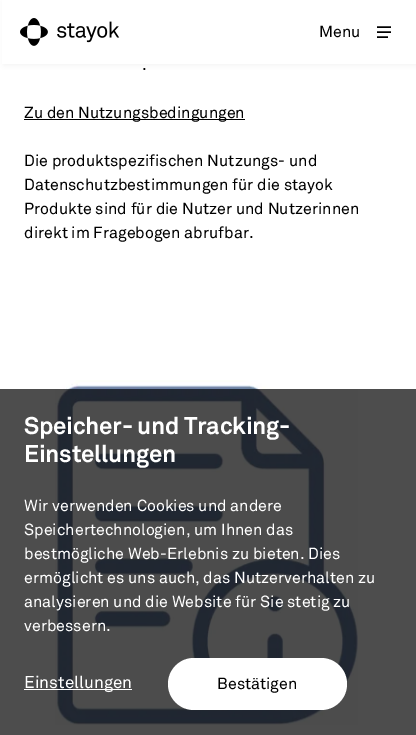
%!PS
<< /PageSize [416 735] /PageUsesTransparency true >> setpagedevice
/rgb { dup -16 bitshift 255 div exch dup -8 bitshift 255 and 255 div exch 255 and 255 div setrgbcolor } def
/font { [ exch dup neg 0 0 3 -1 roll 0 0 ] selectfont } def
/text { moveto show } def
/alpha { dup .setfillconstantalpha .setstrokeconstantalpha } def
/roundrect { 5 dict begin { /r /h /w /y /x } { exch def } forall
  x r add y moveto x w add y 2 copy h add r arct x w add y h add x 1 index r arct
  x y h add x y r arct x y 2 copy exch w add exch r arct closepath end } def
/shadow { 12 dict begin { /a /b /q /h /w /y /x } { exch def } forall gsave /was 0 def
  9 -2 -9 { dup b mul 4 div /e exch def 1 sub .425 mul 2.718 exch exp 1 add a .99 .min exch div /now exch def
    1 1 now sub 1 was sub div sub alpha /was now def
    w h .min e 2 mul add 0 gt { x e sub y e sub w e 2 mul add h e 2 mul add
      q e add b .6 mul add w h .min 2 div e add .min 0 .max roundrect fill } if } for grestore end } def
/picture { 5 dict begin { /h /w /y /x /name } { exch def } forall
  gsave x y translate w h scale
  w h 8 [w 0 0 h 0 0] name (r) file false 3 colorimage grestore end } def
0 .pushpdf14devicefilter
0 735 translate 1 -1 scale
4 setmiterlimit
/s1 { /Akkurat-Regular 16 font 16#000000 rgb } def
/s2 { /Akkurat-Regular 16 font 16#FFFFFF rgb } def
/s3 { /Akkurat-Regular 17 font 16#FFFFFF rgb } def
16#FFFFFF rgb
0 0 416 735 rectfill
16#4D4D4D rgb
0 389 416 346 rectfill
16#13161C rgb
4 1 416 64 0 3 0.05 shadow
16#FFFFFF rgb
2 0 414 64 rectfill
(pic1.raw) 20 18 100 28 picture
s1
(Menu) 319 37 text
1.4 setlinewidth
391 32 moveto 377 32 lineto 391 27 moveto 377 27 lineto 388 37 moveto 377 37 lineto stroke
(.) 142 70 text
24 119 221 1 rectfill
(Zu den Nutzungsbedingungen) 24 118 text
(Die produktspezifischen Nutzungs- und) 24 166 text
(Datenschutzbestimmungen für die stayok) 24 190 text
(Produkte sind für die Nutzer und Nutzerinnen) 24 214 text
(direkt im Fragebogen abrufbar.) 24 238 text
(pic2.raw) 55 380 303 345 picture
/Akkurat-Bold 24 font
16#FFFFFF rgb
24 434 moveto -0.25 0 (Speicher- und Tracking-) ashow
24 462 moveto -0.25 0 (Einstellungen) ashow
s2
(Wir verwenden Cookies und andere) 24 511 text
(Speichertechnologien, um Ihnen das) 24 535 text
(bestmögliche Web-Erlebnis zu bieten. Dies) 24 559 text
(ermöglicht es uns auch, das Nutzerverhalten zu) 24 583 text
(analysieren und die Website für Sie stetig zu) 24 607 text
(verbessern.) 24 631 text
24 689 108 1 rectfill
s3
(Einstellungen) 24 688 text
168 658 179 52 26 roundrect fill
s1
(Bestätigen) 217 689 text
.poppdf14devicefilter showpage
